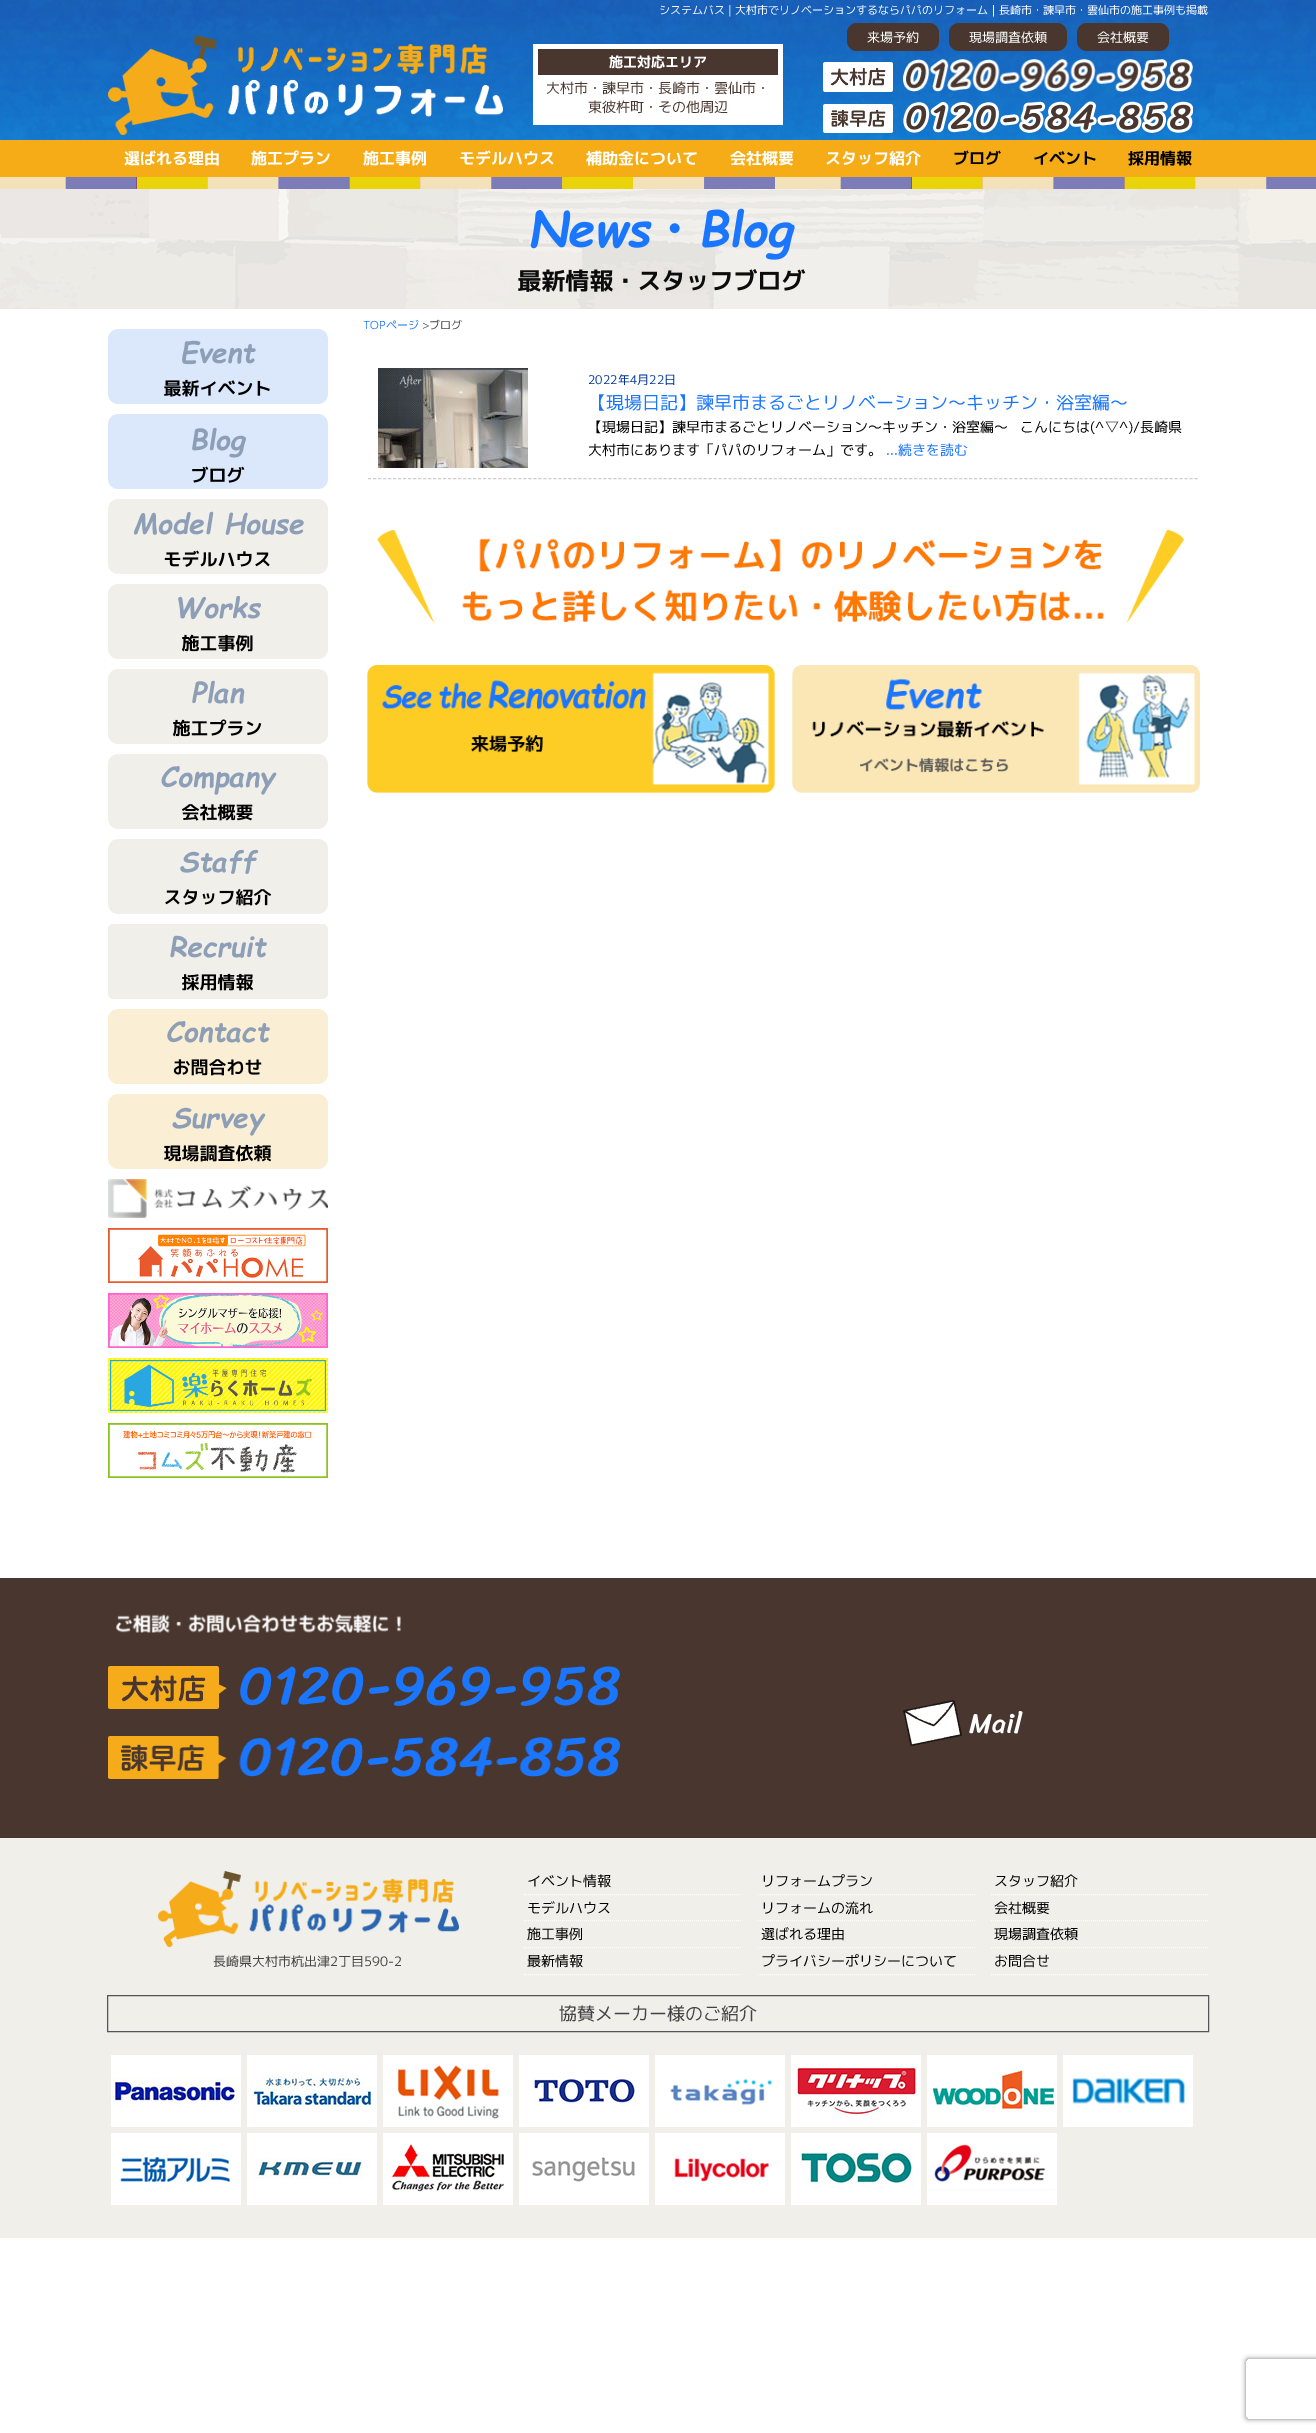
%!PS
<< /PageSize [1316 2433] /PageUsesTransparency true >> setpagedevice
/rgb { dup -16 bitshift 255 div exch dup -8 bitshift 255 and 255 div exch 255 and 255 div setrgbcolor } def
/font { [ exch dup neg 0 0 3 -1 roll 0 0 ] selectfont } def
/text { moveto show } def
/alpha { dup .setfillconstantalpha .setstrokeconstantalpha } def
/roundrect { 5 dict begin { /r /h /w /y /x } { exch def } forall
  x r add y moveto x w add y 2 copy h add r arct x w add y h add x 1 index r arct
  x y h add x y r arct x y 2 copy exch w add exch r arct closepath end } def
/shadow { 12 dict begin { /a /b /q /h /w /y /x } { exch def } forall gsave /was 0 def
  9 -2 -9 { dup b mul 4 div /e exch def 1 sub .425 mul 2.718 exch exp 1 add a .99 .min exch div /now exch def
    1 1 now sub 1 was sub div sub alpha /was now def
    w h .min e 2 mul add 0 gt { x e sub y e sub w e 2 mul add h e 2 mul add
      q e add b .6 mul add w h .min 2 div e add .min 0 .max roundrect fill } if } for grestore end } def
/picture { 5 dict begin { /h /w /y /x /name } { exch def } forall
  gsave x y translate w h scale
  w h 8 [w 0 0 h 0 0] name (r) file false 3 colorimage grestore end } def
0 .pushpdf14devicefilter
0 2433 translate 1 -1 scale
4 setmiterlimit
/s1 { /MPLUS1p-Regular 11 font 16#FFFFFF rgb } def
/s2 { /MPLUS1p-Bold 14 font 16#FFFFFF rgb } def
/s3 { /MPLUS1p-Regular 14 font 16#49372F rgb } def
/s4 { /MPLUS1p-Regular 13 font 16#FFFFFF rgb } def
/s5 { /MPLUS1p-Bold 16 font 16#FFFFFF rgb } def
/s6 { /MPLUS1p-Bold 16 font 16#000000 rgb } def
/s7 { /MPLUS1p-Regular 11 font 16#1B76FE rgb } def
/s8 { /MPLUS1p-Regular 11 font 16#444444 rgb } def
/s9 { /MPLUS1p-Regular 12 font 16#003399 rgb } def
/s10 { /MPLUS1p-Regular 18 font 16#1B76FE rgb } def
/s11 { /MPLUS1p-Regular 14 font 16#000000 rgb } def
/s12 { /MPLUS1p-Regular 14 font 16#1B76FE rgb } def
/s13 { /MPLUS1p-Regular 13 font 16#444444 rgb } def
/s14 { /MPLUS1p-Regular 18 font 16#444444 rgb } def
16#FFFFFF rgb
0 0 1316 2433 rectfill
(pic1.raw) 0 0 1316 140 picture
s1
(システムバス | 大村市でリノベーションするならパパのリフォーム｜長崎市・諫早市・雲仙市の施工事例も掲載) 659 14 text
(pic2.raw) 108 35 395 100 picture
533 44 250 81 rectfill
16#49372F rgb
538 49 240 26 rectfill
s2
(施工対応エリア) 609 67 text
s3
(大村市・諫早市・長崎市・雲仙市・) 546 93 text
(東彼杵町・その他周辺) 588 112 text
847 23 92 28 10 roundrect fill
s4
(来場予約) 867 42 text
16#49372F rgb
949 23 118 28 10 roundrect fill
s4
(現場調査依頼) 969 42 text
16#49372F rgb
1077 23 92 28 10 roundrect fill
s4
(会社概要) 1097 42 text
(pic3.raw) 823 62 70 30 picture
(pic4.raw) 903 59 290 33 picture
(pic5.raw) 823 104 70 29 picture
(pic6.raw) 903 101 290 32 picture
16#F6AC16 rgb
0 140 1316 37 rectfill
s5
(選ばれる理由) 124 164 text
(施工プラン) 251 164 text
(施工事例) 363 164 text
(モデルハウス) 459 164 text
(補助金について) 586 164 text
(会社概要) 730 164 text
(スタッフ紹介) 825 164 text
s6
(ブログ) 953 164 text
(イベント) 1033 164 text
(採用情報) 1128 164 text
(pic7.raw) 0 177 1316 12 picture
(pic8.raw) 0 189 1316 120 picture
(pic9.raw) 518 208 288 84 picture
(pic10.raw) 108 329 220 75 picture
(pic11.raw) 108 414 220 75 picture
(pic12.raw) 108 499 220 75 picture
(pic13.raw) 108 584 220 75 picture
(pic14.raw) 108 669 220 75 picture
(pic15.raw) 108 754 220 75 picture
(pic16.raw) 108 839 220 75 picture
(pic17.raw) 108 924 220 75 picture
(pic18.raw) 108 1009 220 75 picture
(pic19.raw) 108 1094 220 75 picture
(pic20.raw) 108 1179 220 39 picture
(pic21.raw) 108 1228 220 55 picture
(pic22.raw) 108 1293 220 55 picture
(pic23.raw) 108 1358 220 55 picture
(pic24.raw) 108 1423 220 55 picture
s7
(TOPページ) 363 329 text
s8
(>ブログ) 422 329 text
16#CCCCCC rgb
[3 2.01] 0 setdash
368 478.5 moveto 1198 478.5 lineto stroke
(pic25.raw) 378 368 150 100 picture
s9
(2022年4月22日) 588 384 text
s10
(【現場日記】諫早市まるごとリノベーション～キッチン・浴室編～) 588 409 text
s11
(【現場日記】諫早市まるごとリノベーション～キッチン・浴室編～) 588 432 text
(こんにちは\(^▽^\)/長崎県) 1020 432 text
(大村市にあります「パパのリフォーム」です。) 588 455 text
s12
(...続きを読む) 886 455 text
(pic26.raw) 377 530 808 94 picture
(pic27.raw) 367 665 408 128 picture
(pic28.raw) 792 665 408 128 picture
16#49372F rgb
0 1578 1316 260 rectfill
(pic29.raw) 116 1614 285 19 picture
(pic30.raw) 108 1666 512 43 picture
(pic31.raw) 108 1736 512 43 picture
(pic32.raw) 903 1700 120 46 picture
16#F0EFEA rgb
0 1838 1316 400 rectfill
(pic33.raw) 158 1871 301 76 picture
s13
(長崎県大村市杭出津2丁目590-2) 213 1966 text
16#FFFFFF rgb
[1 1] 0 setdash
524 1894.5 moveto 741 1894.5 lineto stroke
s11
(イベント情報) 527 1886 text
16#FFFFFF rgb
524 1920.5 moveto 741 1920.5 lineto stroke
s11
(モデルハウス) 527 1913 text
16#FFFFFF rgb
524 1947.5 moveto 741 1947.5 lineto stroke
s11
(施工事例) 527 1939 text
16#FFFFFF rgb
524 1974.5 moveto 741 1974.5 lineto stroke
s11
(最新情報) 527 1966 text
16#FFFFFF rgb
758 1894.5 moveto 975 1894.5 lineto stroke
s11
(リフォームプラン) 761 1886 text
16#FFFFFF rgb
758 1920.5 moveto 975 1920.5 lineto stroke
s11
(リフォームの流れ) 761 1913 text
16#FFFFFF rgb
758 1947.5 moveto 975 1947.5 lineto stroke
s11
(選ばれる理由) 761 1939 text
16#FFFFFF rgb
758 1974.5 moveto 975 1974.5 lineto stroke
s11
(プライバシーポリシーについて) 761 1966 text
16#FFFFFF rgb
991 1894.5 moveto 1208 1894.5 lineto stroke
s11
(スタッフ紹介) 994 1886 text
16#FFFFFF rgb
991 1920.5 moveto 1208 1920.5 lineto stroke
s11
(会社概要) 994 1913 text
16#FFFFFF rgb
991 1947.5 moveto 1208 1947.5 lineto stroke
s11
(現場調査依頼) 994 1939 text
16#FFFFFF rgb
991 1974.5 moveto 1208 1974.5 lineto stroke
s11
(お問合せ) 994 1966 text
16#555555 rgb
[] 0 setdash
107.5 1995.5 1101 36 rectstroke
s14
(協賛メーカー様のご紹介) 559 2020 text
(pic34.raw) 111 2055 130 72 picture
(pic35.raw) 247 2055 130 72 picture
(pic36.raw) 383 2055 130 72 picture
(pic37.raw) 519 2055 130 72 picture
(pic38.raw) 655 2055 130 72 picture
(pic39.raw) 791 2055 130 72 picture
(pic40.raw) 927 2055 130 72 picture
(pic41.raw) 1063 2055 130 72 picture
(pic42.raw) 111 2133 130 72 picture
(pic43.raw) 247 2133 130 72 picture
(pic44.raw) 383 2133 130 72 picture
(pic45.raw) 519 2133 130 72 picture
(pic46.raw) 655 2133 130 72 picture
(pic47.raw) 791 2133 130 72 picture
(pic48.raw) 927 2133 130 72 picture
gsave
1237 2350 moveto 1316 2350 lineto 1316 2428 lineto 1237 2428 lineto closepath 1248 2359 moveto 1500 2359 lineto 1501 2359 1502 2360 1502 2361 curveto 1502 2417 lineto 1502 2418 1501 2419 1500 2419 curveto 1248 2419 lineto 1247 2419 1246 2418 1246 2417 curveto 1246 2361 lineto 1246 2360 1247 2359 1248 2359 curveto closepath eoclip newpath
16#808080 rgb
1246 2359 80 60 2 2.5 1 shadow
grestore
.poppdf14devicefilter showpage
